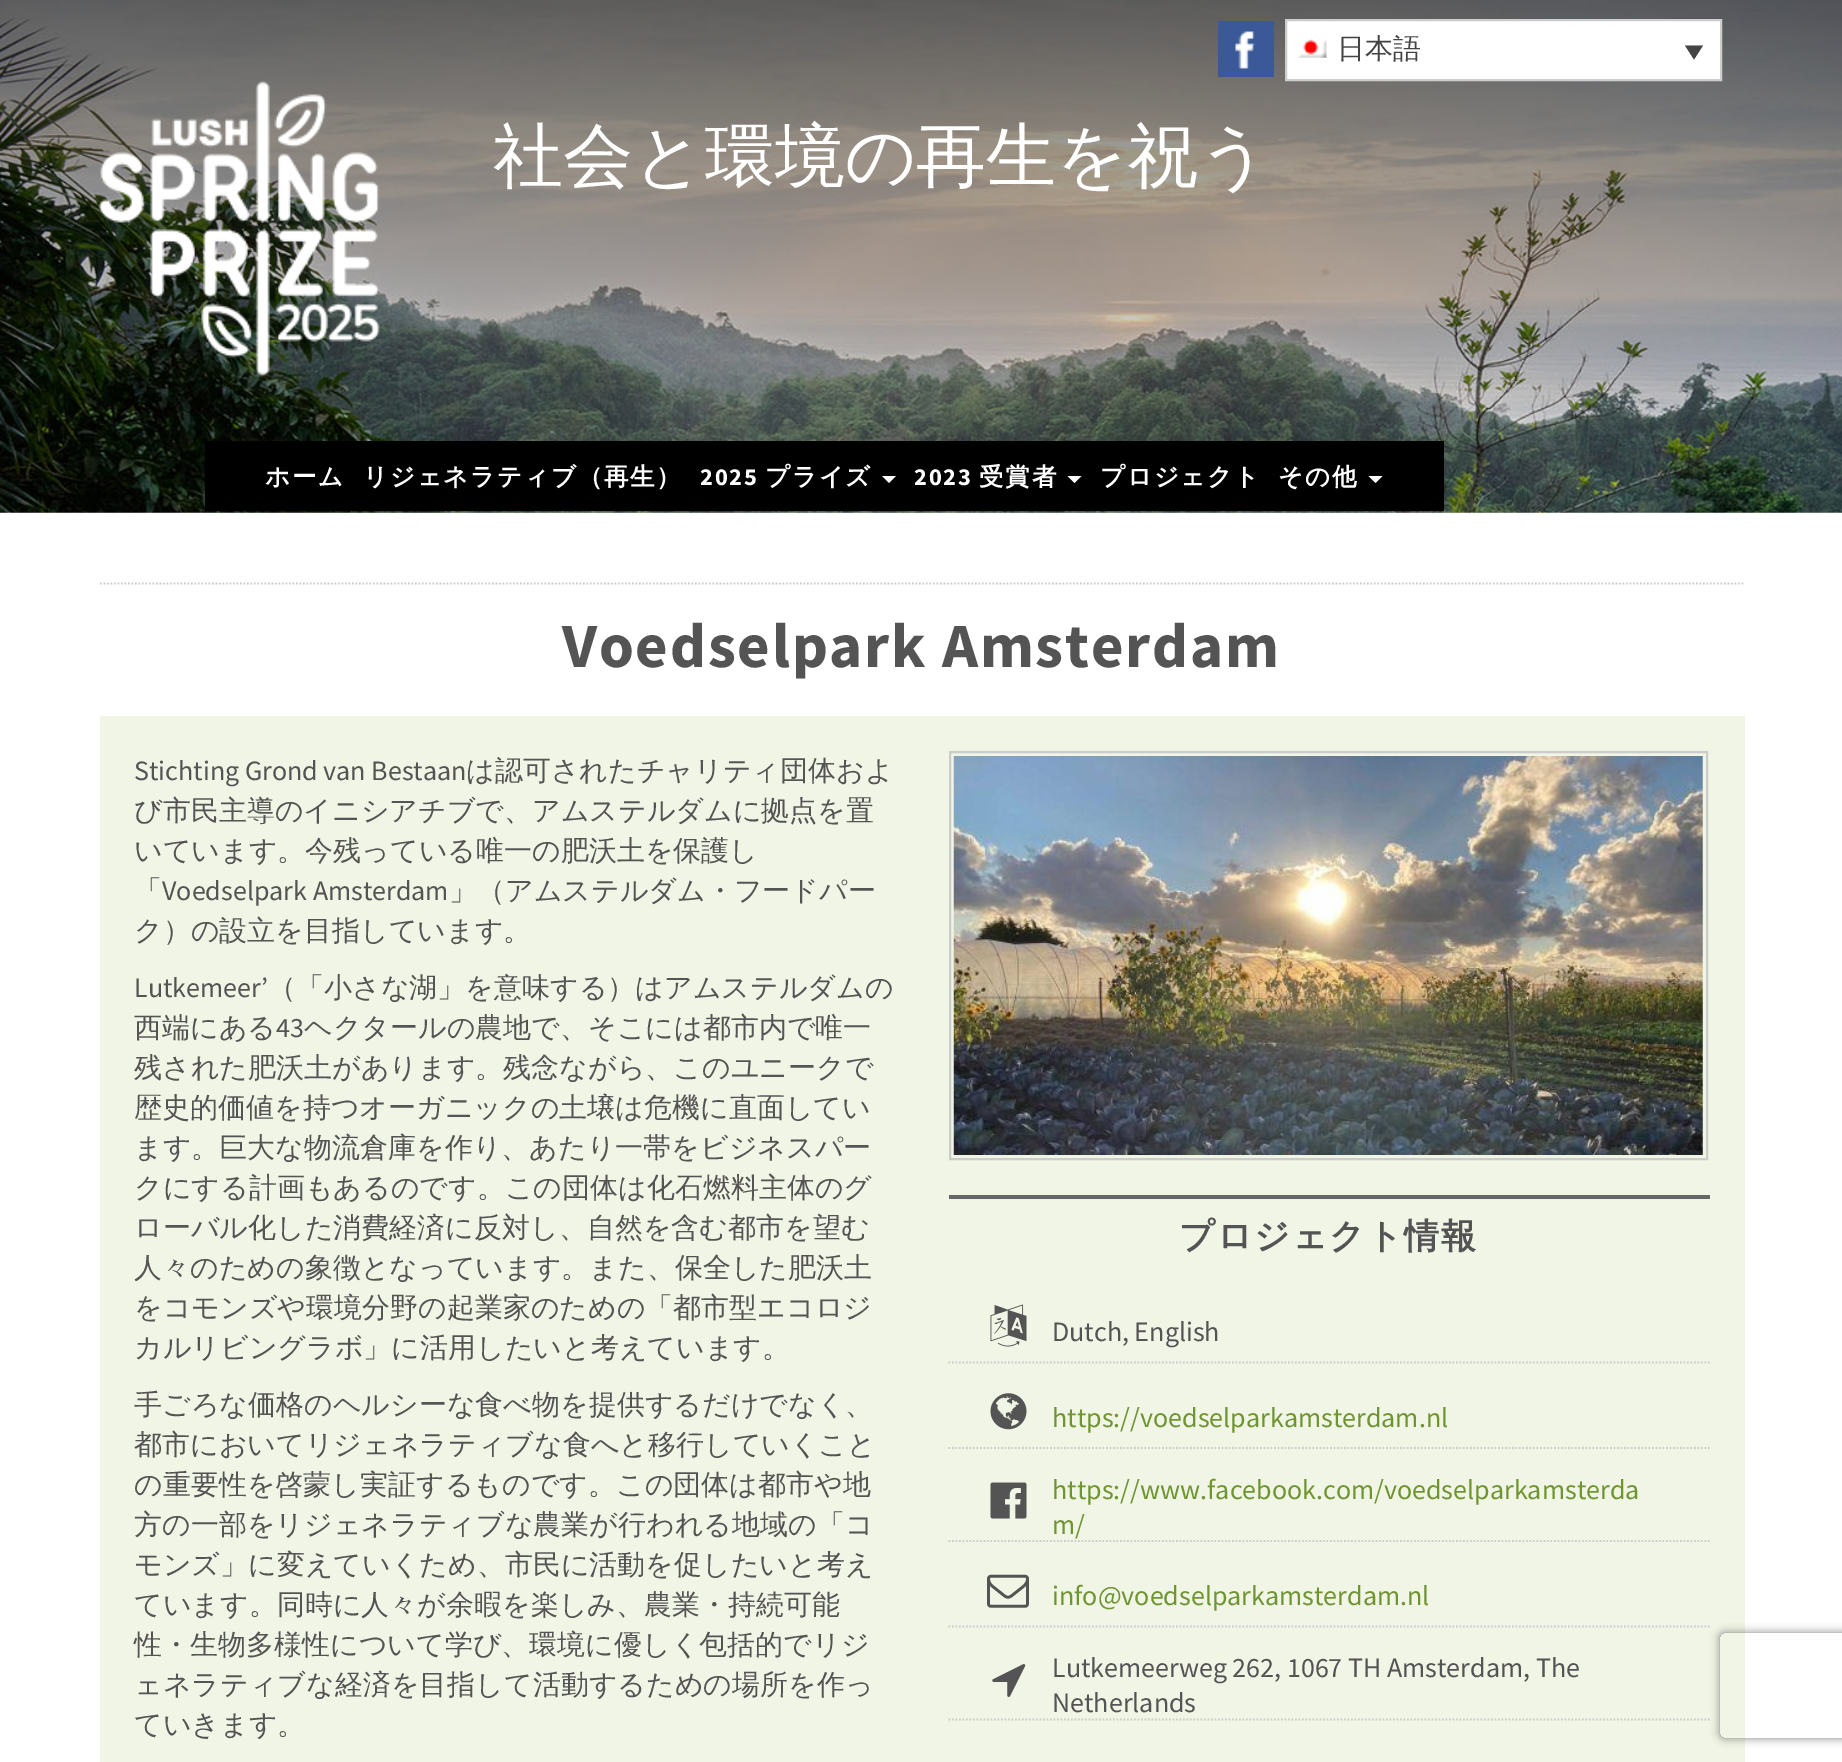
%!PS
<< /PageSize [1842 1762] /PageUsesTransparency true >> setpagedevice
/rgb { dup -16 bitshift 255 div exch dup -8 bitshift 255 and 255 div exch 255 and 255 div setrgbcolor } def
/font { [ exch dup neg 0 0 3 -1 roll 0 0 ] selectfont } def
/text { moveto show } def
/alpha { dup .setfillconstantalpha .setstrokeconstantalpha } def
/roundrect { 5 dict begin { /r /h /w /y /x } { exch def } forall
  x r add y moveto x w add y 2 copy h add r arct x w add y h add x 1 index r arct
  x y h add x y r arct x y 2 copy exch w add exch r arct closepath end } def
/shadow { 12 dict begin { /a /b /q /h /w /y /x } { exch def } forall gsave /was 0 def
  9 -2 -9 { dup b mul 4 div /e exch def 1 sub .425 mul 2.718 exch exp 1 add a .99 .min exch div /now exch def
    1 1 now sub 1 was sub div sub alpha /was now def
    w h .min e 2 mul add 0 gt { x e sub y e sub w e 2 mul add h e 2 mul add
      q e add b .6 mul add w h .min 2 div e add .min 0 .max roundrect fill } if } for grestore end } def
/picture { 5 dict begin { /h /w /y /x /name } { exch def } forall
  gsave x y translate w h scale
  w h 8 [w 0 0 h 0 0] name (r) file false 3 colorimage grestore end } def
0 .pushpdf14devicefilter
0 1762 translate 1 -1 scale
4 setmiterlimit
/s1 { /WenQuanYiZenHei-Medium 28 font 16#444444 rgb } def
/s2 { /WenQuanYiZenHei-Medium 70 font 16#FFFFFF rgb } def
/s3 { /SourceSansPro-Regular 28 font 16#545454 rgb } def
/s4 { /WenQuanYiZenHei-Medium 28 font 16#545454 rgb } def
/s5 { /SourceSansPro-Regular 28 font 16#6F9432 rgb } def
16#FFFFFF rgb
0 0 1842 1762 rectfill
(pic1.raw) 0 0 1842 513 picture
(pic2.raw) 1218 21 56 56 picture
1286 20 moveto 1721 20 lineto 1721 80 lineto 1286 80 lineto closepath gsave fill grestore
16#CDCDCD rgb
2 setlinewidth
stroke
(pic3.raw) 1298 39 29 19 picture
s1
(日本語) 1337 58 text
1685 45.5 moveto 1703 45.5 lineto 1694 59.5 lineto closepath fill
(pic4.raw) 98 80 282 297 picture
s2
(社会と環境の再生を祝う) 493 180 text
16#000000 rgb
205 441 1239 70 rectfill
/WenQuanYiZenHei-Bold 24.5 font
16#FFFFFF rgb
265 485 moveto 1.75 0 (ホーム) ashow
363 485 moveto 1.75 0 (リジェネラティブ（再生）) ashow
/SourceSansPro-Bold 24.5 font
700 485 moveto 1.75 0 (2025) ashow
/WenQuanYiZenHei-Bold 24.5 font
765 485 moveto 1.75 0 (プライズ) ashow
882 476 moveto 896 476 lineto 889 483 lineto closepath fill
/SourceSansPro-Bold 24.5 font
914 485 moveto 1.75 0 (2023) ashow
/WenQuanYiZenHei-Bold 24.5 font
979 485 moveto 1.75 0 (受賞者) ashow
1067.5 476 moveto 1081.5 476 lineto 1074.5 483 lineto closepath fill
1100 485 moveto 1.75 0 (プロジェクト) ashow
1278 485 moveto 1.75 0 (その他) ashow
1368.5 476 moveto 1382.5 476 lineto 1375.5 483 lineto closepath fill
16#CCCCCC rgb
1.8 setlinewidth
[1.75 1.75] 0 setdash
100 583.5 moveto 1745 583.5 lineto stroke
/SourceSansPro-Bold 63 font
16#545454 rgb
562 667 moveto 1.75 0 (Voedselpark Amsterdam) ashow
16#F1F5E5 rgb
100 716 1645 1046 rectfill
s3
(Stichting Grond van Bestaan) 134 780 text
s4
(は認可されたチャリティ団体およ) 466 780 text
(び市民主導のイニシアチブで、アムステルダムに拠点を置) 134 820 text
(いています。今残っている唯一の肥沃土を保護し) 134 860 text
(「) 134 900 text
s3
(Voedselpark Amsterdam) 162 900 text
s4
(」（アムステルダム・フードパー) 449 900 text
(ク）の設立を目指しています。) 134 940 text
s3
(Lutkemeer’) 134 997 text
s4
(（「小さな湖」を意味する）はアムステルダムの) 268 997 text
(西端にある) 134 1037 text
s3
(43) 276 1037 text
s4
(ヘクタールの農地で、そこには都市内で唯一) 304 1037 text
(残された肥沃土があります。残念ながら、このユニークで) 134 1077 text
(歴史的価値を持つオーガニックの土壌は危機に直面してい) 134 1117 text
(ます。巨大な物流倉庫を作り、あたり一帯をビジネスパー) 134 1157 text
(クにする計画もあるのです。この団体は化石燃料主体のグ) 134 1197 text
(ローバル化した消費経済に反対し、自然を含む都市を望む) 134 1237 text
(人々のための象徴となっています。また、保全した肥沃土) 134 1277 text
(をコモンズや環境分野の起業家のための「都市型エコロジ) 134 1317 text
(カルリビングラボ」に活用したいと考えています。) 134 1357 text
(手ごろな価格のヘルシーな食べ物を提供するだけでなく、) 134 1414 text
(都市においてリジェネラティブな食へと移行していくこと) 134 1454 text
(の重要性を啓蒙し実証するものです。この団体は都市や地) 134 1494 text
(方の一部をリジェネラティブな農業が行われる地域の「コ) 134 1534 text
(モンズ」に変えていくため、市民に活動を促したいと考え) 134 1574 text
(ています。同時に人々が余暇を楽しみ、農業・持続可能) 134 1614 text
(性・生物多様性について学び、環境に優しく包括的でリジ) 134 1654 text
(ェネラティブな経済を目指して活動するための場所を作っ) 134 1694 text
(ていきます。) 134 1734 text
16#CCCCCC rgb
2 setlinewidth
[] 0 setdash
950 752 757 407 rectstroke
(pic5.raw) 953 756 750 399 picture
16#666666 rgb
949 1195 761 4 rectfill
/WenQuanYiZenHei-Bold 35 font
16#545454 rgb
1179 1248 moveto 1.75 0 (プロジェクト情報) ashow
16#CCCCCC rgb
1.8 setlinewidth
[1.75 1.75] 0 setdash
948.5 1362.5 moveto 1710 1362.5 lineto stroke
(pic6.raw) 990 1304 37 43 picture
s3
(Dutch, English) 1052 1341 text
16#CCCCCC rgb
948.5 1448 moveto 1710 1448 lineto stroke
(pic7.raw) 990 1393 37 37 picture
s5
(https://voedselparkamsterdam.nl) 1052 1427 text
16#CCCCCC rgb
948.5 1541 moveto 1710 1541 lineto stroke
(pic8.raw) 990 1482 37 37 picture
s5
(https://www.facebook.com/voedselparkamsterda) 1052 1499 text
(m/) 1052 1534 text
16#CCCCCC rgb
948.5 1626.5 moveto 1710 1626.5 lineto stroke
(pic9.raw) 987 1574 42 34 picture
s5
(info@voedselparkamsterdam.nl) 1052 1605 text
16#CCCCCC rgb
948.5 1719.5 moveto 1710 1719.5 lineto stroke
(pic10.raw) 992 1664 34 33 picture
s3
(Lutkemeerweg 262, 1067 TH Amsterdam, The) 1052 1677 text
(Netherlands) 1052 1712 text
gsave
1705 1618 moveto 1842 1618 lineto 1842 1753 lineto 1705 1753 lineto closepath 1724 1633 moveto 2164 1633 lineto 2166 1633 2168 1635 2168 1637 curveto 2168 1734 lineto 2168 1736 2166 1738 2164 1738 curveto 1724 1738 lineto 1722 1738 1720 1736 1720 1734 curveto 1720 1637 lineto 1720 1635 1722 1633 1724 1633 curveto closepath eoclip newpath
16#808080 rgb
1720 1633 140 105 4 4.5 1 shadow
grestore
.poppdf14devicefilter showpage
